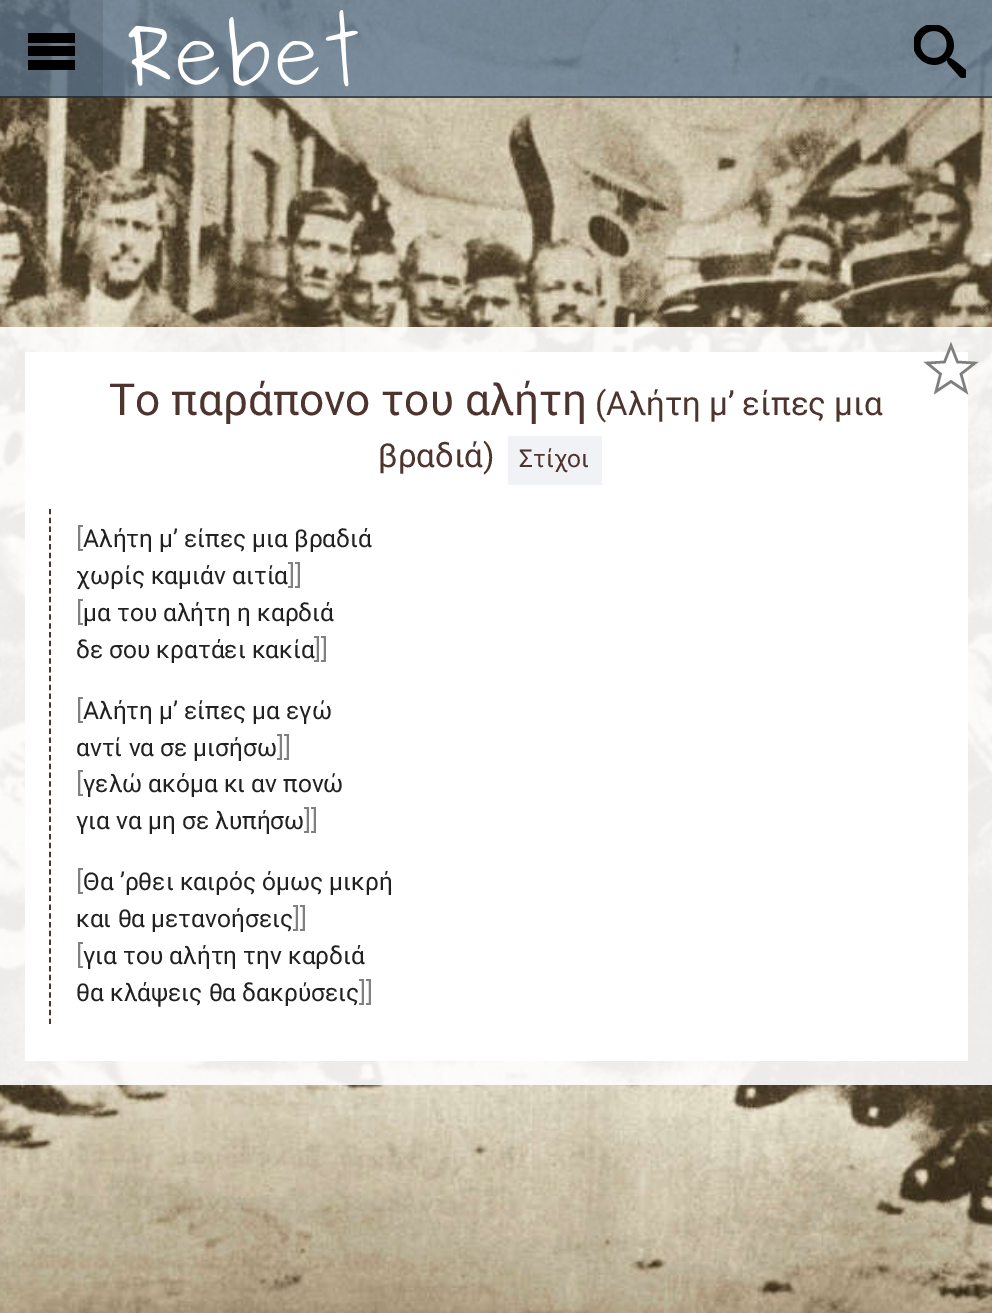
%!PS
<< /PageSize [992 1313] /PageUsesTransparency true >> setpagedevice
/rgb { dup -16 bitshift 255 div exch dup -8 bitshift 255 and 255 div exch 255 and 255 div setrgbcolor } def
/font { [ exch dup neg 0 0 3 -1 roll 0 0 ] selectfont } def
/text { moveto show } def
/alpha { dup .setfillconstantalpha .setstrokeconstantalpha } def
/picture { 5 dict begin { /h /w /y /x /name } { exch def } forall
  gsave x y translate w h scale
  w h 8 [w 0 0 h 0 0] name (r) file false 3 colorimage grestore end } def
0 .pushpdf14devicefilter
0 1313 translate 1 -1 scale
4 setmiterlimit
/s1 { /Roboto-Regular 44.1 font 16#4E342E rgb } def
/s2 { /Roboto-Regular 33 font 16#4E342E rgb } def
/s3 { /Roboto-Regular 24.5 font 16#4E342E rgb } def
/s4 { /Roboto-Regular 27 font 16#808080 rgb } def
/s5 { /Roboto-Regular 24.5 font 16#212121 rgb } def
16#FFFFFF rgb
0 0 992 1313 rectfill
(pic1.raw) 0 0 992 1313 picture
0.8 alpha
16#647D96 rgb
0 0 992 98 rectfill
0.5 alpha
16#000000 rgb
0 96 992 2 rectfill
1 alpha
(pic2.raw) 128 10 230 77 picture
gsave
914 25 52 53 rectclip
966 70 moveto 963 68 953 58 949 58 curveto 965 39 938 12 919 30 curveto 901 49 928 76 947 60 curveto 947 63 950 66 952 68 curveto 960 77 lineto 965 81 970 74 966 70 curveto closepath 934 58 moveto 916 58 916 31 934 31 curveto 951 31 951 58 934 58 curveto closepath fill
grestore
0.1 alpha
0 0 103 98 rectfill
1 alpha
28 33 moveto 75 33 lineto 75 43 lineto 28 43 lineto closepath 28 46 moveto 75 46 lineto 75 56 lineto 28 56 lineto closepath 28 60 moveto 75 60 lineto 75 70 lineto 28 70 lineto closepath fill
0.9 alpha
16#FFFFFF rgb
0 327 992 758 rectfill
1 alpha
25 352 943 709 rectfill
0.5 alpha
966 391 moveto 951 382 lineto 936 391 lineto 941 374 lineto 927 363 lineto 945 362 lineto 951 345 lineto 957 362 lineto 975 363 lineto 961 374 lineto closepath fill
1 alpha
16#7F7F7F rgb
2.5 setlinewidth
966 391.5 moveto 951 381.5 lineto 936 391.5 lineto 940.5 374 lineto 927 363 lineto 944.5 362 lineto 951 345.5 lineto 957.5 362 lineto 975 363 lineto 961 374 lineto closepath stroke
s1
(Το παράπονο του αλήτη) 109 415 text
s2
(\(Αλήτη μ’ είπες μια) 595 415 text
(βραδιά\)) 378 467 text
16#F0F2F5 rgb
508 436 94 49 rectfill
s3
(Στίχοι) 519 467 text
1.8 setlinewidth
[5.25 3.54] 0 setdash
50 509 moveto 50 1024 lineto stroke
s4
([) 76 547 text
s5
(Αλήτη μ’ είπες μια βραδιά) 83 547 text
(χωρίς καμιάν αιτία) 76 584 text
s4
(]]) 288 584 text
([) 76 621 text
s5
(μα του αλήτη η καρδιά) 83 621 text
(δε σου κρατάει κακία) 76 658 text
s4
(]]) 314 658 text
([) 76 719 text
s5
(Αλήτη μ’ είπες μα εγώ) 83 719 text
(αντί να σε μισήσω) 76 756 text
s4
(]]) 277 756 text
([) 76 792 text
s5
(γελώ ακόμα κι αν πονώ) 83 792 text
(για να μη σε λυπήσω) 76 829 text
s4
(]]) 304 829 text
([) 76 890 text
s5
(Θα ’ρθει καιρός όμως μικρή) 83 890 text
(και θα μετανοήσεις) 76 927 text
s4
(]]) 293 927 text
([) 76 964 text
s5
(για του αλήτη την καρδιά) 83 964 text
(θα κλάψεις θα δακρύσεις) 76 1001 text
s4
(]]) 359 1001 text
.poppdf14devicefilter showpage
